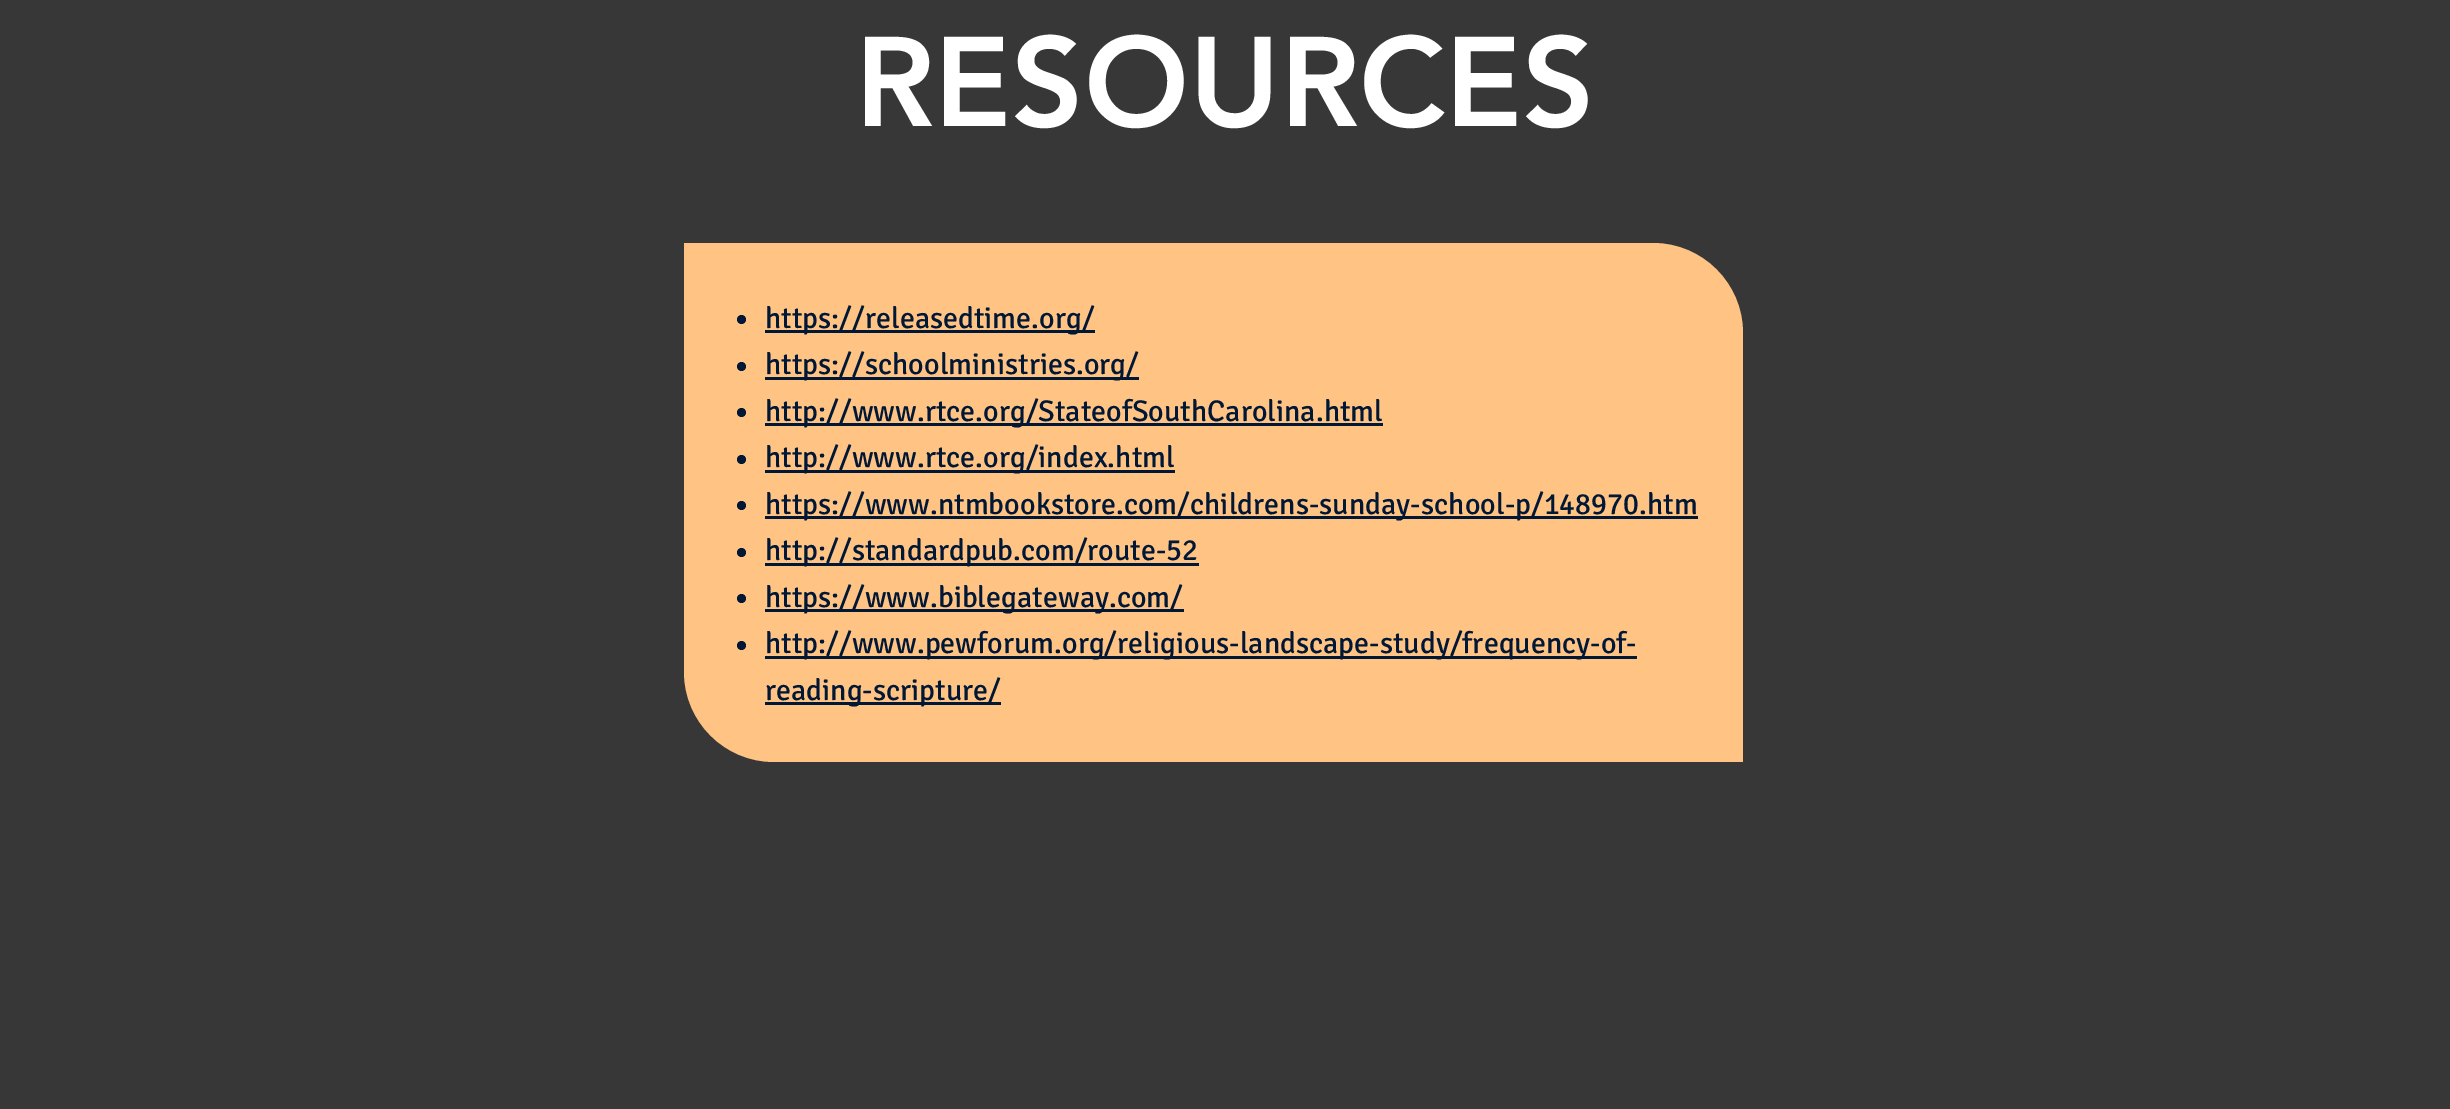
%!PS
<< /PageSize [2450 1109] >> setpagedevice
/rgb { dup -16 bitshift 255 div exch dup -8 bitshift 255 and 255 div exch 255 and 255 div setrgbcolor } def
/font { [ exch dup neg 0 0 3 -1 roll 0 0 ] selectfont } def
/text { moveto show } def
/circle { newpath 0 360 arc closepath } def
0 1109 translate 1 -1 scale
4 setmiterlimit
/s1 { /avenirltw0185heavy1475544-Black 126 font 16#FFFFFF rgb } def
/s2 { /Signika-Regular 30 font 16#001736 rgb } def
16#373737 rgb
0 0 2450 1109 rectfill
s1
(RESOURCES) 855 126 text
16#FFC384 rgb
684 243 moveto 1653 243 lineto 1702.5 243 1743 283.5 1743 333 curveto 1743 762 lineto 774 762 lineto 724.5 762 684 721.5 684 672 curveto closepath fill
16#001736 rgb
741.5 319.5 4.5 circle fill
765 330 330 3 rectfill
s2
(https://releasedtime.org/) 765 328 text
741.5 366.5 4.5 circle fill
765 377 374 3 rectfill
(https://schoolministries.org/) 765 374 text
741.5 412.5 4.5 circle fill
765 423 618 3 rectfill
(http://www.rtce.org/StateofSouthCarolina.html) 765 421 text
741.5 459.5 4.5 circle fill
765 470 410 3 rectfill
(http://www.rtce.org/index.html) 765 467 text
741.5 505.5 4.5 circle fill
765 516 933 3 rectfill
(https://www.ntmbookstore.com/childrens-sunday-school-p/148970.htm) 765 514 text
741.5 552.5 4.5 circle fill
765 563 434 3 rectfill
(http://standardpub.com/route-52) 765 560 text
741.5 598.5 4.5 circle fill
765 609 419 3 rectfill
(https://www.biblegateway.com/) 765 607 text
741.5 645.5 4.5 circle fill
765 656 872 3 rectfill
(http://www.pewforum.org/religious-landscape-study/frequency-of-) 765 653 text
765 702 236 3 rectfill
(reading-scripture/) 765 700 text
showpage
